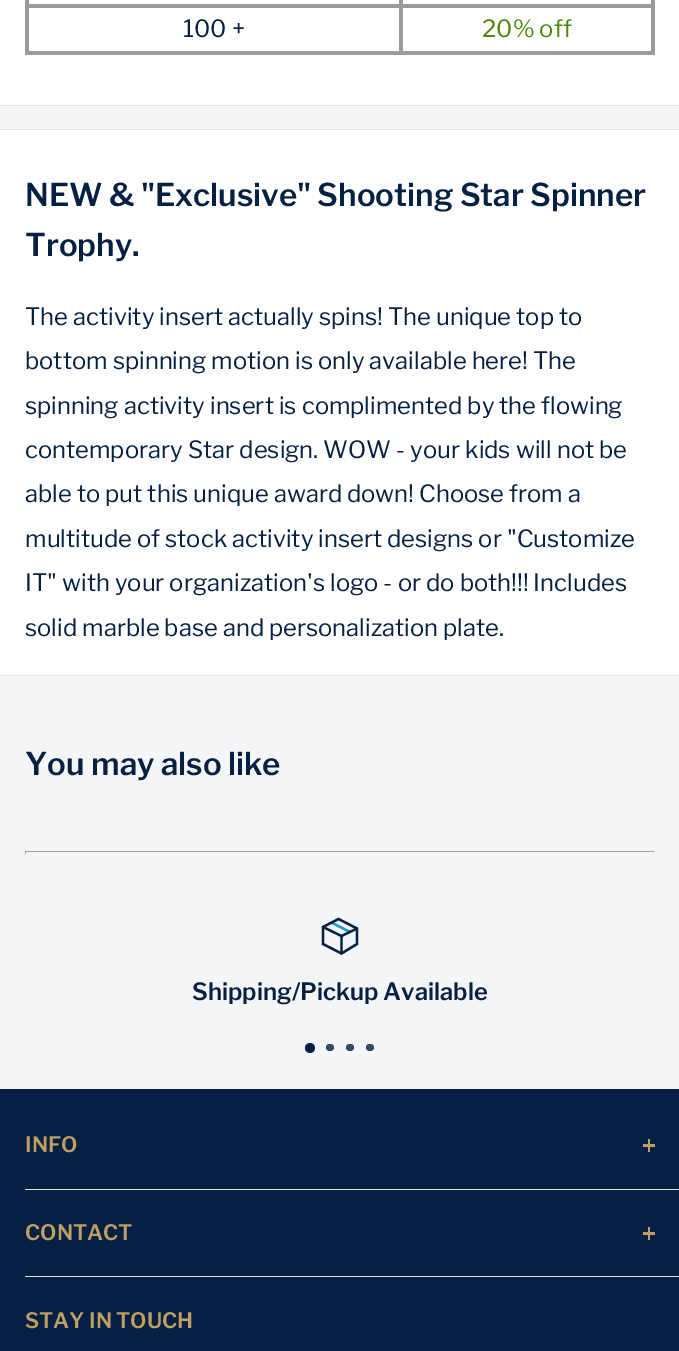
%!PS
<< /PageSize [679 1351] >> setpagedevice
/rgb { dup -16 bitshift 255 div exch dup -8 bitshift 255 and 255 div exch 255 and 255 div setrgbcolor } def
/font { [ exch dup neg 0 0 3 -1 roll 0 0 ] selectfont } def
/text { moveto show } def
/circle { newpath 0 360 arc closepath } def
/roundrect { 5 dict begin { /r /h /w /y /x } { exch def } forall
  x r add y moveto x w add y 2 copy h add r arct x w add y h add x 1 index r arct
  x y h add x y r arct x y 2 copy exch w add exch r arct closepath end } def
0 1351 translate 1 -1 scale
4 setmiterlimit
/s1 { /LibreFranklin-Regular 23.75 font 16#052042 rgb } def
/s2 { /LibreFranklin-Regular 23.75 font 16#4D850C rgb } def
/s3 { /LibreFranklin-SemiBold 31.25 font 16#052042 rgb } def
/s4 { /LibreFranklin-SemiBold 23.75 font 16#052042 rgb } def
/s5 { /LibreFranklin-SemiBold 21.25 font 16#C0A062 rgb } def
16#F3F5F6 rgb
0 0 679 1351 rectfill
16#FFFFFF rgb
0 0 679 105 rectfill
16#EAE3D4 rgb
0 105 679 1 rectfill
16#9B9B9B rgb
399 4 256 4 rectfill
651 0 4 55 rectfill
399 51 256 4 rectfill
399 4 4 51 rectfill
25 4 378 4 rectfill
399 0 4 8 rectfill
25 51 378 4 rectfill
25 0 4 55 rectfill
s1
(100 +) 183 37 text
s2
(20% off) 482 37 text
16#FFFFFF rgb
0 130 679 545 rectfill
16#EAE3D4 rgb
0 129 679 1 rectfill
0 675 679 1 rectfill
s3
(NEW & "Exclusive" Shooting Star Spinner) 25 206 text
(Trophy.) 25 256 text
s1
(The activity insert actually spins! The unique top to) 25 325 text
(bottom spinning motion is only available here! The) 25 369 text
(spinning activity insert is complimented by the flowing) 25 414 text
(contemporary Star design. WOW - your kids will not be) 25 458 text
(able to put this unique award down! Choose from a) 25 502 text
(multitude of stock activity insert designs or "Customize) 25 547 text
(IT" with your organization's logo - or do both!!! Includes) 25 591 text
(solid marble base and personalization plate.) 25 636 text
s3
(You may also like) 25 775 text
16#9F9F9F rgb
25 851 630 1 rectfill
16#EEEEEE rgb
654 851 1 3 rectfill
25 853 630 1 rectfill
16#9F9F9F rgb
25 851 1 3 rectfill
16#1B99D1 rgb
2.3 setlinewidth
331.5 922.5 moveto 350 932 lineto stroke
16#052042 rgb
357 928.5 moveto 341.5 936 lineto 323 927 lineto 341.5 936 moveto 341.5 953.5 lineto stroke
2 setlinecap
357 928.5 moveto 357 944 lineto 341.5 953.5 lineto 323 944 lineto 323 927 lineto 338.5 919 lineto closepath stroke
s4
(Shipping/Pickup Available) 192 1000 text
310 1048 5 circle fill
16#354B66 rgb
326 1044 8 7 3.5 roundrect fill
346 1044 8 7 3.5 roundrect fill
366 1044 8 7 3.5 roundrect fill
16#052042 rgb
0 1089 679 262 rectfill
16#EAE3D4 rgb
25 1189 654 1 rectfill
s5
(INFO) 25 1152 text
648 1139 2 13 rectfill
643 1144 12 3 rectfill
16#EAE3D4 rgb
25 1276 654 1 rectfill
s5
(CONTACT) 25 1240 text
648 1227 2 13 rectfill
643 1232 12 3 rectfill
(STAY IN TOUCH) 25 1328 text
showpage
